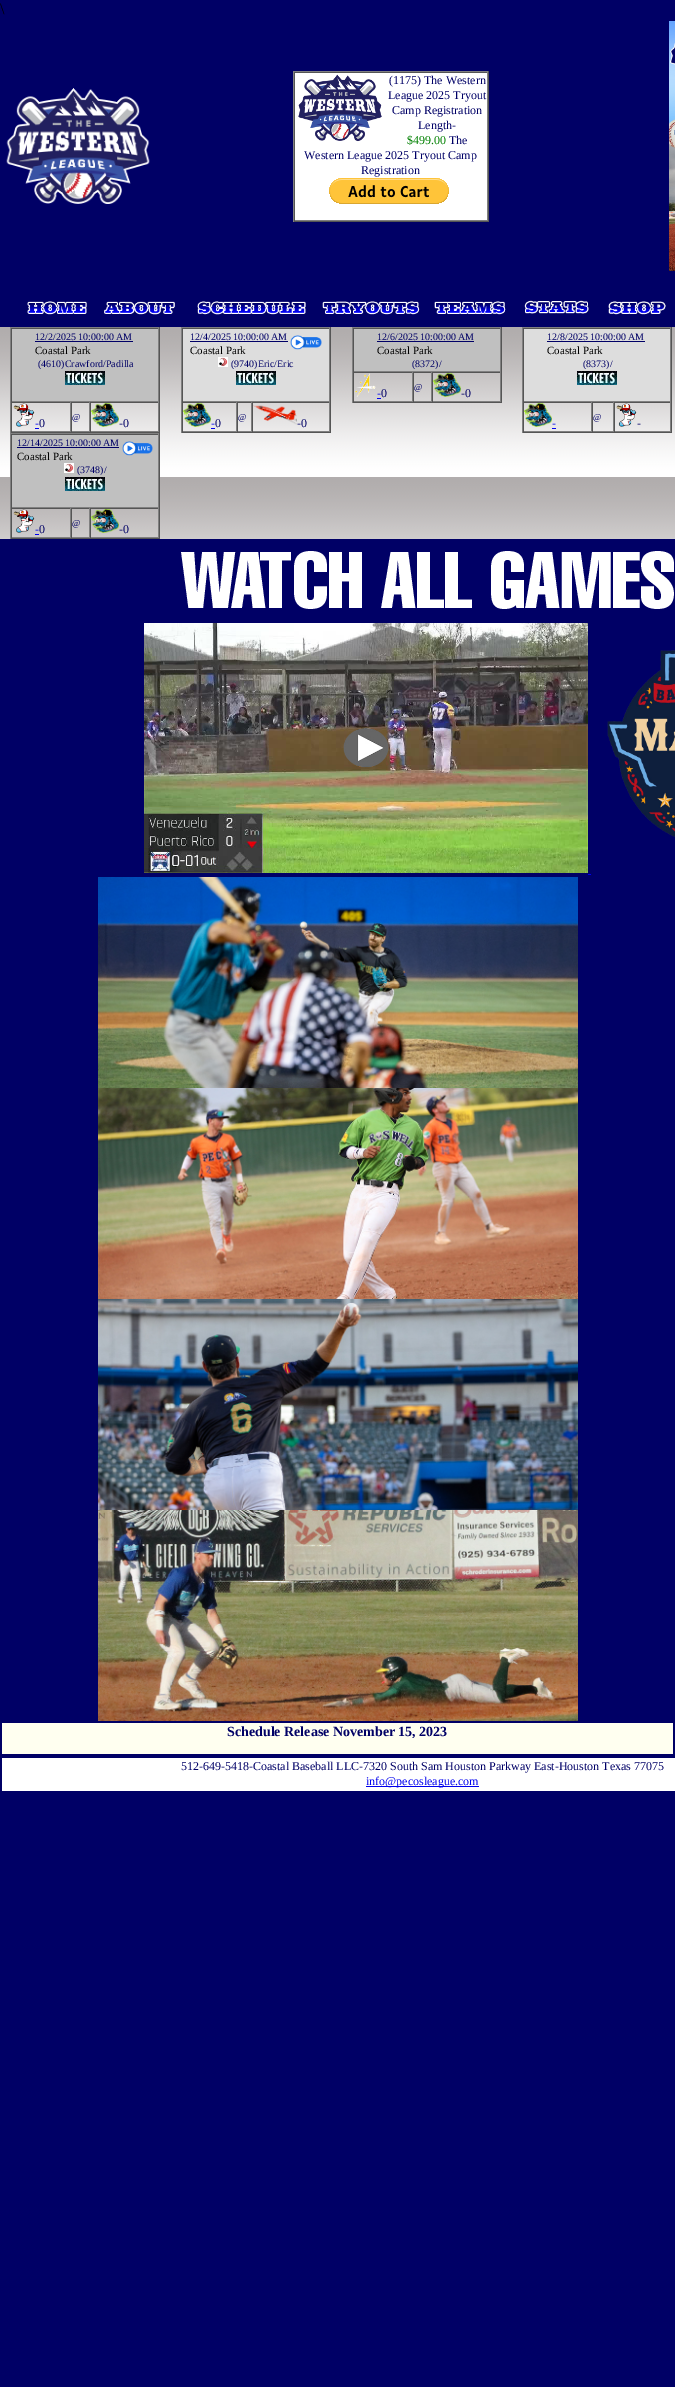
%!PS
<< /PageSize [675 2387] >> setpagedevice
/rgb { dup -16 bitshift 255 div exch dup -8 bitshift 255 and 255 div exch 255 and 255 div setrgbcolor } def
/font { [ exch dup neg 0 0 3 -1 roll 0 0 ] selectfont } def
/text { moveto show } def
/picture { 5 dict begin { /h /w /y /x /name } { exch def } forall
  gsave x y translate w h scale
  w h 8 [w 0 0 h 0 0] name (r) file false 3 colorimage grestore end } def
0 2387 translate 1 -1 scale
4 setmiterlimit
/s1 { /LiberationSerif-Regular 16 font 16#000000 rgb } def
/s2 { /LiberationSerif-Regular 12 font 16#000066 rgb } def
/s3 { /LiberationSerif-Regular 12 font 16#008000 rgb } def
/s4 { /LiberationSerif-Regular 10 font 16#000066 rgb } def
/s5 { /LiberationSerif-Regular 11 font 16#000000 rgb } def
/s6 { /LiberationSerif-Regular 9 font 16#000066 rgb } def
/s7 { /LiberationSerif-Regular 12 font 16#0000EE rgb } def
/s8 { /LiberationSerif-Bold 14 font 16#000066 rgb } def
16#000066 rgb
0 0 675 2387 rectfill
s1
(\\) 0 14 text
(pic1.raw) 6 88 144 116 picture
16#FFFFFF rgb
295 73 192 147 rectfill
16#808080 rgb
293 71 196 1 rectfill
16#555555 rgb
488 71 1 151 rectfill
293 221 196 1 rectfill
16#808080 rgb
293 71 1 151 rectfill
16#555555 rgb
294 72 194 1 rectfill
16#808080 rgb
487 72 1 149 rectfill
294 220 194 1 rectfill
16#555555 rgb
294 72 1 149 rectfill
(pic2.raw) 298 74 84 68 picture
s2
(\(1175\) The Western) 389 84 text
(League 2025 Tryout) 388 99 text
(Camp Registration) 392 114 text
(Length-) 418 129 text
s3
($499.00) 407 144 text
s2
(The) 449 144 text
(Western League 2025 Tryout Camp) 304 159 text
(Registration) 361 174 text
(pic3.raw) 329 178 120 26 picture
(pic4.raw) 669 21 6 250 picture
(pic5.raw) 27 301 60 14 picture
(pic6.raw) 104 301 71 14 picture
(pic7.raw) 197 301 109 14 picture
(pic8.raw) 322 301 98 14 picture
(pic9.raw) 434 301 72 14 picture
(pic10.raw) 524 300 65 14 picture
(pic11.raw) 608 301 58 14 picture
(pic12.raw) 0 327 675 212 picture
16#808080 rgb
10 327 150 1 rectfill
16#555555 rgb
159 327 1 106 rectfill
10 432 150 1 rectfill
16#808080 rgb
10 327 1 106 rectfill
16#C0C0C0 rgb
12 329 146 72 rectfill
16#555555 rgb
11 328 148 1 rectfill
16#808080 rgb
158 328 1 74 rectfill
11 401 148 1 rectfill
16#555555 rgb
11 328 1 74 rectfill
s4
(12/2/2025 10:00:00 AM) 35 340 text
35 341 98 1 rectfill
s5
(Coastal Park) 35 354 text
s4
(\(4610\)Crawford/Padilla) 38 367 text
(pic13.raw) 65 371 40 14 picture
16#555555 rgb
11 402 148 1 rectfill
16#808080 rgb
89 402 1 30 rectfill
71 431 19 1 rectfill
16#555555 rgb
71 402 1 30 rectfill
s6
(@) 72 420 text
16#808080 rgb
70 402 1 30 rectfill
11 431 60 1 rectfill
16#555555 rgb
11 402 1 30 rectfill
(pic14.raw) 13 403 22 24 picture
s7
(-) 35 427 text
35 428 4 1 rectfill
s2
(0) 39 427 text
16#808080 rgb
158 402 1 30 rectfill
90 431 69 1 rectfill
16#555555 rgb
90 402 1 30 rectfill
(pic15.raw) 91 403 28 24 picture
s2
(-0) 119 427 text
16#808080 rgb
181 327 150 1 rectfill
16#555555 rgb
330 327 1 106 rectfill
181 432 150 1 rectfill
16#808080 rgb
181 327 1 106 rectfill
16#DDDDDD rgb
183 329 146 72 rectfill
16#555555 rgb
182 328 148 1 rectfill
16#808080 rgb
329 328 1 74 rectfill
182 401 148 1 rectfill
16#555555 rgb
182 328 1 74 rectfill
s4
(12/4/2025 10:00:00 AM) 190 340 text
190 341 98 1 rectfill
s5
(Coastal Park) 190 354 text
(pic16.raw) 290 335 32 15 picture
(pic17.raw) 218 357 10 10 picture
s4
(\(9740\)Eric/Eric) 231 367 text
(pic13.raw) 236 371 40 14 picture
16#555555 rgb
182 402 148 1 rectfill
16#808080 rgb
251 402 1 30 rectfill
237 431 15 1 rectfill
16#555555 rgb
237 402 1 30 rectfill
s6
(@) 238 420 text
16#808080 rgb
236 402 1 30 rectfill
182 431 55 1 rectfill
16#555555 rgb
182 402 1 30 rectfill
(pic18.raw) 183 403 28 24 picture
s7
(-) 211 427 text
211 428 4 1 rectfill
s2
(0) 215 427 text
16#808080 rgb
329 402 1 30 rectfill
252 431 78 1 rectfill
16#555555 rgb
252 402 1 30 rectfill
(pic19.raw) 253 405 44 20 picture
s2
(-0) 297 427 text
16#808080 rgb
352 327 150 1 rectfill
16#555555 rgb
501 327 1 76 rectfill
352 402 150 1 rectfill
16#808080 rgb
352 327 1 76 rectfill
16#C0C0C0 rgb
354 329 146 42 rectfill
16#555555 rgb
353 328 148 1 rectfill
16#808080 rgb
500 328 1 44 rectfill
353 371 148 1 rectfill
16#555555 rgb
353 328 1 44 rectfill
s4
(12/6/2025 10:00:00 AM) 377 340 text
377 341 97 1 rectfill
s5
(Coastal Park) 377 354 text
s4
(\(8372\)/) 412 367 text
16#555555 rgb
353 372 148 1 rectfill
16#808080 rgb
431 372 1 30 rectfill
413 401 19 1 rectfill
16#555555 rgb
413 372 1 30 rectfill
s6
(@) 414 390 text
16#808080 rgb
412 372 1 30 rectfill
353 401 60 1 rectfill
16#555555 rgb
353 372 1 30 rectfill
(pic20.raw) 355 373 21 24 picture
s7
(-) 377 397 text
377 398 4 1 rectfill
s2
(0) 381 397 text
16#808080 rgb
500 372 1 30 rectfill
432 401 69 1 rectfill
16#555555 rgb
432 372 1 30 rectfill
(pic21.raw) 433 373 28 24 picture
s2
(-0) 461 397 text
16#808080 rgb
522 327 150 1 rectfill
16#555555 rgb
671 327 1 106 rectfill
522 432 150 1 rectfill
16#808080 rgb
522 327 1 106 rectfill
16#DDDDDD rgb
524 329 146 72 rectfill
16#555555 rgb
523 328 148 1 rectfill
16#808080 rgb
670 328 1 74 rectfill
523 401 148 1 rectfill
16#555555 rgb
523 328 1 74 rectfill
s4
(12/8/2025 10:00:00 AM) 547 340 text
547 341 98 1 rectfill
s5
(Coastal Park) 547 354 text
s4
(\(8373\)/) 583 367 text
(pic13.raw) 577 371 40 14 picture
16#555555 rgb
523 402 148 1 rectfill
16#808080 rgb
613 402 1 30 rectfill
592 431 22 1 rectfill
16#555555 rgb
592 402 1 30 rectfill
s6
(@) 593 420 text
16#808080 rgb
591 402 1 30 rectfill
523 431 69 1 rectfill
16#555555 rgb
523 402 1 30 rectfill
(pic22.raw) 524 403 28 24 picture
s7
(-) 552 427 text
552 428 4 1 rectfill
16#808080 rgb
670 402 1 30 rectfill
614 431 57 1 rectfill
16#555555 rgb
614 402 1 30 rectfill
(pic23.raw) 616 403 21 24 picture
s2
(-) 637 427 text
16#808080 rgb
10 433 150 1 rectfill
16#555555 rgb
159 433 1 106 rectfill
10 538 150 1 rectfill
16#808080 rgb
10 433 1 106 rectfill
16#C0C0C0 rgb
12 435 146 72 rectfill
16#555555 rgb
11 434 148 1 rectfill
16#808080 rgb
158 434 1 74 rectfill
11 507 148 1 rectfill
16#555555 rgb
11 434 1 74 rectfill
s4
(12/14/2025 10:00:00 AM) 17 446 text
17 447 102 1 rectfill
s5
(Coastal Park) 17 460 text
(pic24.raw) 122 441 31 15 picture
(pic17.raw) 64 463 10 10 picture
s4
(\(3748\)/) 77 473 text
(pic13.raw) 65 477 40 14 picture
16#555555 rgb
11 508 148 1 rectfill
16#808080 rgb
89 508 1 30 rectfill
71 537 19 1 rectfill
16#555555 rgb
71 508 1 30 rectfill
s6
(@) 72 526 text
16#808080 rgb
70 508 1 30 rectfill
11 537 60 1 rectfill
16#555555 rgb
11 508 1 30 rectfill
(pic25.raw) 13 509 22 24 picture
s7
(-) 35 533 text
35 534 4 1 rectfill
s2
(0) 39 533 text
16#808080 rgb
158 508 1 30 rectfill
90 537 69 1 rectfill
16#555555 rgb
90 508 1 30 rectfill
(pic26.raw) 91 509 28 24 picture
s2
(-0) 119 533 text
(pic27.raw) 181 551 493 58 picture
(pic28.raw) 144 623 444 250 picture
(pic29.raw) 607 650 68 187 picture
16#0000EE rgb
588 874 3 1 rectfill
(pic30.raw) 98 877 480 211 picture
(pic31.raw) 98 1088 480 211 picture
(pic32.raw) 98 1299 480 211 picture
(pic33.raw) 98 1510 480 211 picture
16#FFFFF0 rgb
2 1723 671 31 rectfill
s8
(Schedule Release November 15, 2023) 227 1736 text
16#FFFFFF rgb
2 1758 673 33 rectfill
s2
(512-649-5418-Coastal Baseball LLC-7320 South Sam Houston Parkway East-Houston Texas 77075) 181 1770 text
16#0000EE rgb
366 1786 113 1 rectfill
(info@pecosleague.com) 366 1785 text
showpage
